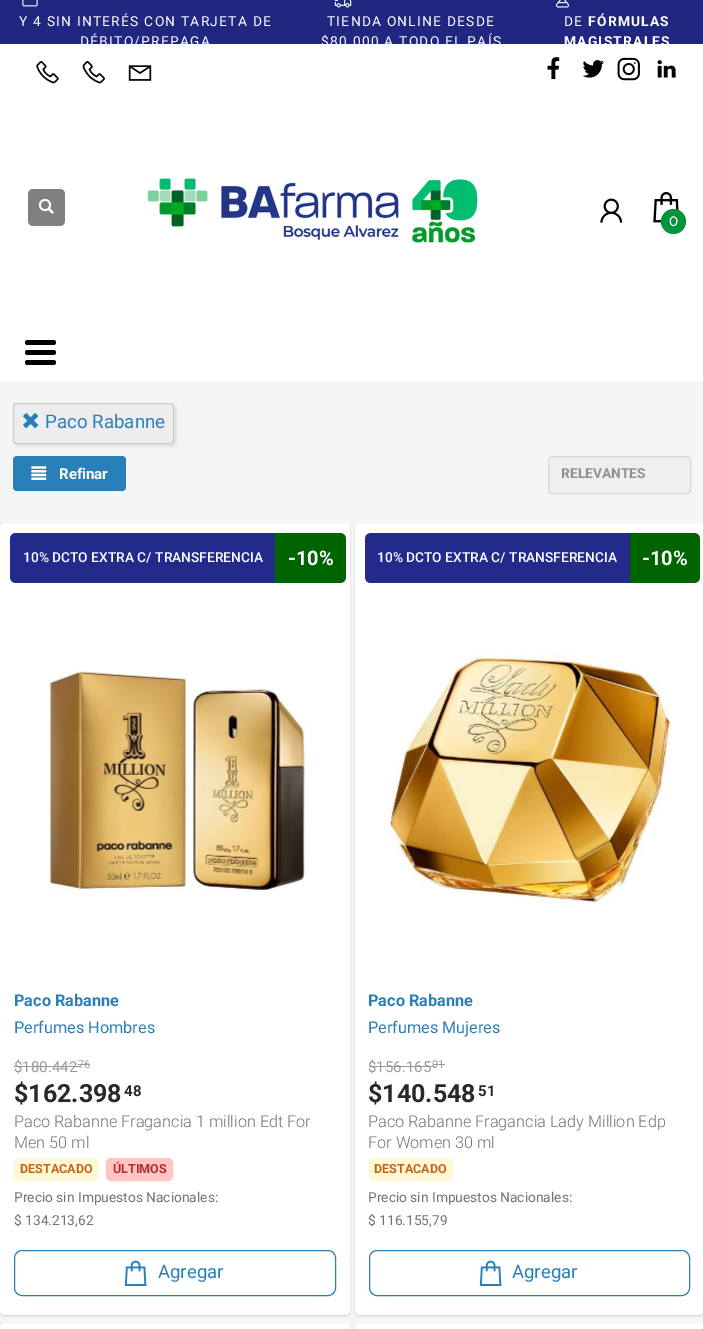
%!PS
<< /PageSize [703 1329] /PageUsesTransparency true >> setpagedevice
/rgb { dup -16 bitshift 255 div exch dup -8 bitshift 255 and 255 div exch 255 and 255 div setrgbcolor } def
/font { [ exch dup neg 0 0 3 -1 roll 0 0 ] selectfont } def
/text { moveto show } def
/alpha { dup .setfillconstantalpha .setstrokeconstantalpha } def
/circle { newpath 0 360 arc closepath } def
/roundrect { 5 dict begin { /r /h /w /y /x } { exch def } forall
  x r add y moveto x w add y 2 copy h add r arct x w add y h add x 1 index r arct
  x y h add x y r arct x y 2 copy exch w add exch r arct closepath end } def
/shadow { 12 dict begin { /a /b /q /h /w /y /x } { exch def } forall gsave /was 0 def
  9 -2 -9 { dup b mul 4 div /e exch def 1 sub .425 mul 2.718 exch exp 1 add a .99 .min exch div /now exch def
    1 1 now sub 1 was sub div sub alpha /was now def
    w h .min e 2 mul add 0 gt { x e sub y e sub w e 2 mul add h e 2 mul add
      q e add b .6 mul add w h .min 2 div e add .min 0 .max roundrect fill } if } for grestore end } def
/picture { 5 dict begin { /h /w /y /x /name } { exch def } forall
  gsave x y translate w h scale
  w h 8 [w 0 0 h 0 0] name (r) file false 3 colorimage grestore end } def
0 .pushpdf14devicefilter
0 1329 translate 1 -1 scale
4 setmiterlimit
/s1 { /Montserrat-Medium 13.75 font 16#FFFFFF rgb } def
/s2 { /Roboto-Regular 18.75 font 16#2980B9 rgb } def
/s3 { /Roboto-Bold 15 font 16#FFFFFF rgb } def
/s4 { /Roboto-Bold 13.75 font 16#909090 rgb } def
/s5 { /Roboto-Medium 13.75 font 16#FFFFFF rgb } def
/s6 { /Roboto-Bold 20 font 16#FFFFFF rgb } def
/s7 { /Roboto-Bold 16.25 font 16#2980B9 rgb } def
/s8 { /Roboto-Regular 16.25 font 16#2980B9 rgb } def
/s9 { /Roboto-Regular 15 font 16#999999 rgb } def
/s10 { /Roboto-Regular 11 font 16#999999 rgb } def
/s11 { /Roboto-Bold 25 font 16#282828 rgb } def
/s12 { /Roboto-Bold 15 font 16#282828 rgb } def
/s13 { /Roboto-Light 16.25 font 16#737373 rgb } def
/s14 { /Roboto-Bold 12.5 font 16#C56512 rgb } def
/s15 { /Roboto-Bold 12.5 font 16#B92929 rgb } def
/s16 { /Roboto-Regular 13.75 font 16#737373 rgb } def
/s17 { /Roboto-Regular 18.5 font 16#2980B9 rgb } def
16#F5F5F5 rgb
0 0 703 1329 rectfill
16#202781 rgb
0 0 703 44 rectfill
(pic1.raw) 22 0 16 7 picture
/Roboto-Regular 13.75 font
16#FFFFFF rgb
19 26 moveto 1.25 0 (Y 4 SIN INTERÉS CON TARJETA DE) ashow
80 46 moveto 1.25 0 (DÉBITO/PREPAGA) ashow
(pic2.raw) 334 0 18 8 picture
327 26 moveto 1.25 0 (TIENDA ONLINE DESDE) ashow
321 46 moveto 1.25 0 ($80.000 A TODO EL PAÍS) ashow
(pic3.raw) 555 0 15 8 picture
564 26 moveto 1.25 0 (DE) ashow
/Roboto-Bold 13.75 font
588 26 moveto 1.25 0 (FÓRMULAS) ashow
564 46 moveto 1.25 0 (MAGISTRALES) ashow
0 44 703 337 rectfill
(pic4.raw) 36 61 23 23 picture
(pic5.raw) 82 61 23 23 picture
(pic6.raw) 128 65 24 16 picture
(pic7.raw) 547 57 13 23 picture
(pic8.raw) 582 60 22 18 picture
(pic9.raw) 617 57 23 24 picture
(pic10.raw) 657 60 19 18 picture
16#808080 rgb
28 189 37 37 5 roundrect fill
(pic11.raw) 38 198 16 16 picture
(pic12.raw) 147 178 331 65 picture
(pic13.raw) 600 198 23 25 picture
(pic14.raw) 653 192 26 31 picture
16#00953A rgb
673.5 221.5 12.5 circle fill
s1
(0) 669 226 text
16#000000 rgb
25 360 31 5 2.5 roundrect fill
25 350 31 5 2.5 roundrect fill
25 340 31 5 2.5 roundrect fill
gsave
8 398 moveto 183 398 lineto 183 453 lineto 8 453 lineto closepath 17 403 moveto 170 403 lineto 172 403 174 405 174 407 curveto 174 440 lineto 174 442 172 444 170 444 curveto 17 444 lineto 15 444 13 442 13 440 curveto 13 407 lineto 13 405 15 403 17 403 curveto closepath eoclip newpath
15 405 161 41 4 2 0.1 shadow
grestore
0.03 alpha
13 403 161 41 rectfill
1 alpha
16#CCCCCC rgb
13.5 403.5 160 40 3.5 roundrect stroke
(pic15.raw) 23 413 16 16 picture
s2
(Paco Rabanne) 45 428 text
13 456 113 35 4 roundrect fill
(pic16.raw) 31 466 16 14 picture
s3
(Refinar) 59 479 text
16#EFEFEF rgb
548.5 456.5 142 37 3.5 roundrect gsave fill grestore
16#D7D7D7 rgb
stroke
s4
(RELEVANTES) 561 478 text
16#000000 rgb
0 524 350 792 5 1 0.16 shadow
16#FFFFFF rgb
0 523 350 792 5 roundrect fill
16#222A8C rgb
16 533 moveto 275 533 lineto 275 583 lineto 16 583 lineto 12.5 583 10 580.5 10 577 curveto 10 539 lineto 10 535.5 12.5 533 16 533 curveto closepath fill
s5
(10% DCTO EXTRA C/ TRANSFERENCIA) 23 562 text
16#006400 rgb
275 533 moveto 340 533 lineto 343.5 533 346 535.5 346 539 curveto 346 577 lineto 346 580.5 343.5 583 340 583 curveto 275 583 lineto closepath fill
s6
(-10%) 288 565 text
(pic17.raw) 47 671 259 220 picture
s7
(Paco Rabanne) 14 1006 text
s8
(Perfumes Hombres) 14 1033 text
s9
($180.442) 14 1072 text
14 1066 66 1 rectfill
s10
(76) 78 1068 text
78 1064 12 1 rectfill
s11
($162.398) 14 1102 text
s12
(48) 124 1096 text
s13
(Paco Rabanne Fragancia 1 million Edt For) 14 1127 text
(Men 50 ml) 14 1148 text
16#FFF8D7 rgb
14.5 1158.5 84 22 4.5 roundrect gsave fill grestore
stroke
s14
(DESTACADO) 20 1173 text
16#FFC4C4 rgb
106.5 1158.5 66 22 4.5 roundrect gsave fill grestore
stroke
s15
(ÚLTIMOS) 113 1173 text
s16
(Precio sin Impuestos Nacionales:) 14 1202 text
($ 134.213,62) 14 1225 text
16#2980B9 rgb
14.5 1250.5 321 45 7.5 roundrect stroke
(pic18.raw) 124 1260 23 26 picture
s17
(Agregar) 158 1278 text
16#000000 rgb
355 524 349 792 5 1 0.16 shadow
16#FFFFFF rgb
355 523 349 792 5 roundrect fill
16#222A8C rgb
371 533 moveto 630 533 lineto 630 583 lineto 371 583 lineto 367.5 583 365 580.5 365 577 curveto 365 539 lineto 365 535.5 367.5 533 371 533 curveto closepath fill
s5
(10% DCTO EXTRA C/ TRANSFERENCIA) 377 562 text
16#006400 rgb
630 533 moveto 694 533 lineto 697.5 533 700 535.5 700 539 curveto 700 577 lineto 700 580.5 697.5 583 694 583 curveto 630 583 lineto closepath fill
s6
(-10%) 642 565 text
(pic19.raw) 385 654 286 249 picture
s7
(Paco Rabanne) 368 1006 text
s8
(Perfumes Mujeres) 368 1033 text
s9
($156.165) 368 1072 text
369 1066 66 1 rectfill
s10
(01) 432 1068 text
433 1064 12 1 rectfill
s11
($140.548) 368 1102 text
s12
(51) 478 1096 text
s13
(Paco Rabanne Fragancia Lady Million Edp) 368 1127 text
(For Women 30 ml) 368 1148 text
16#FFF8D7 rgb
369.5 1158.5 83 22 4.5 roundrect gsave fill grestore
stroke
s14
(DESTACADO) 374 1173 text
s16
(Precio sin Impuestos Nacionales:) 368 1202 text
($ 116.155,79) 368 1225 text
16#2980B9 rgb
369.5 1250.5 320 45 7.5 roundrect stroke
(pic18.raw) 479 1260 23 26 picture
s17
(Agregar) 512 1278 text
16#000000 rgb
0 1324 350 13 5 1 0.16 shadow
16#FFFFFF rgb
0 1323 350 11 5 roundrect fill
16#000000 rgb
355 1324 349 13 5 1 0.16 shadow
16#FFFFFF rgb
355 1323 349 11 5 roundrect fill
.poppdf14devicefilter showpage
